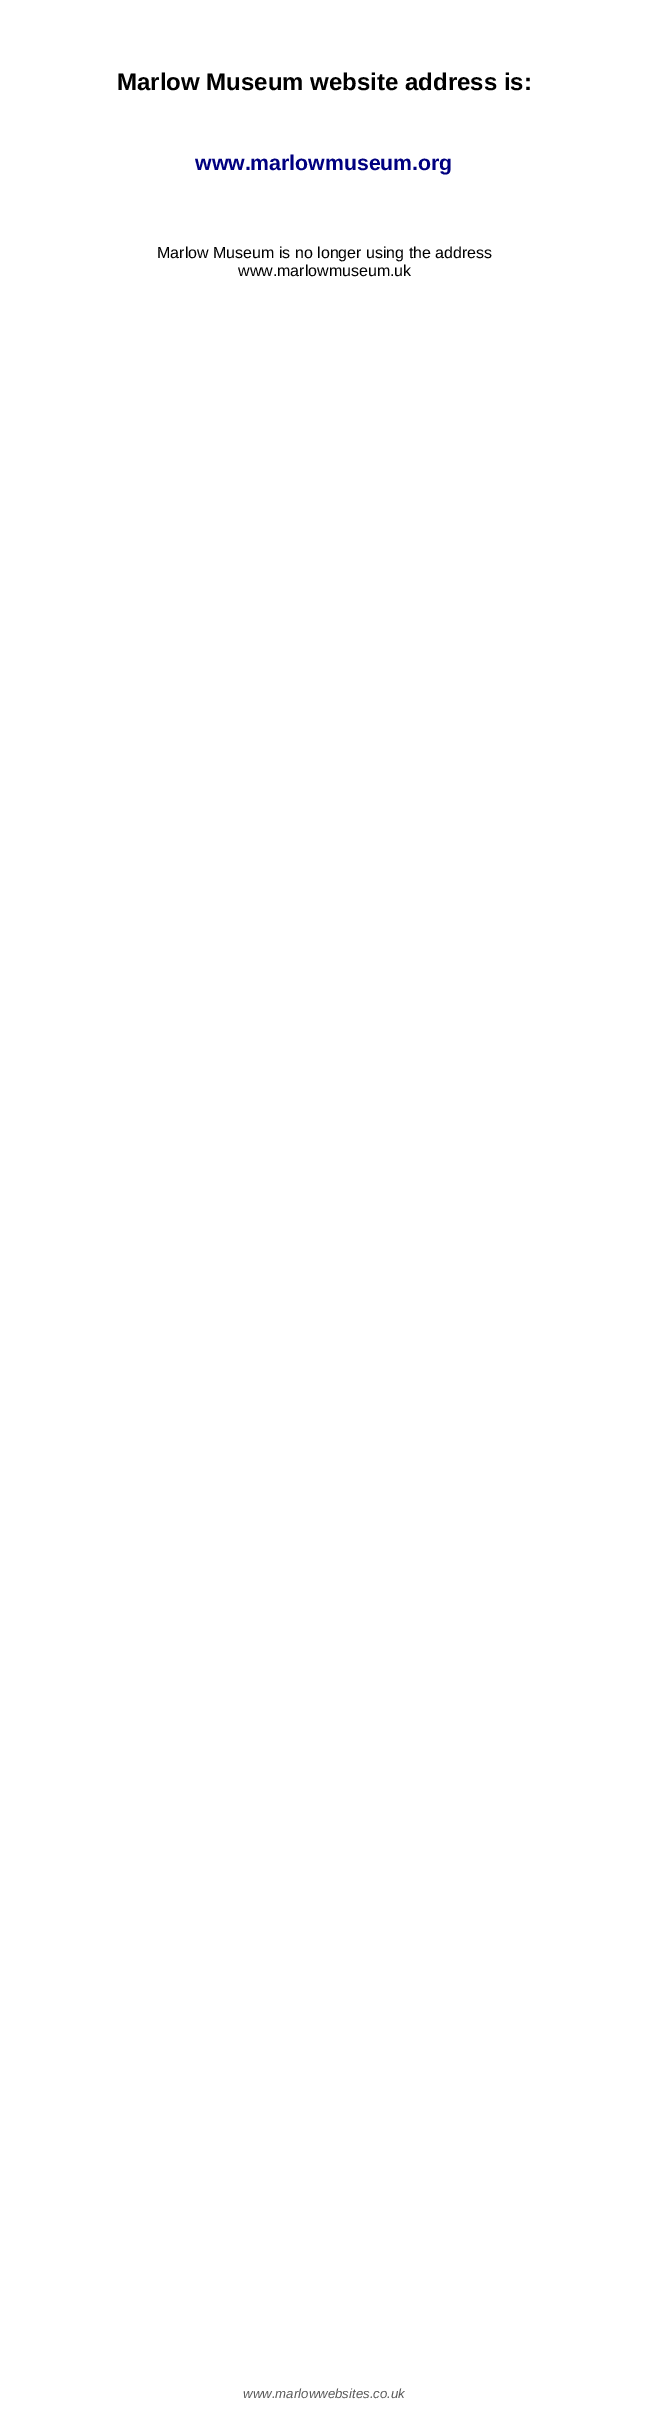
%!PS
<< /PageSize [649 2424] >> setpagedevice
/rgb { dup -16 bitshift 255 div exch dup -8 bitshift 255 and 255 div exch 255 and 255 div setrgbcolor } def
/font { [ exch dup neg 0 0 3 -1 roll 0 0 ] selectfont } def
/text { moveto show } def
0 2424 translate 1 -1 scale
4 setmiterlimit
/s1 { /LiberationSans-Bold 24 font 16#000000 rgb } def
/s2 { /LiberationSans-Bold 21.25 font 16#000080 rgb } def
/s3 { /LiberationSans-Regular 16 font 16#000000 rgb } def
/s4 { /LiberationSans-Italic 13.25 font 16#5A5A5A rgb } def
16#FFFFFF rgb
0 0 649 2424 rectfill
s1
(Marlow Museum website address is:) 117 90 text
s2
(www.marlowmuseum.org) 195 170 text
s3
(Marlow Museum is no longer using the address) 157 258 text
(www.marlowmuseum.uk) 238 276 text
s4
(www.marlowwebsites.co.uk) 243 2398 text
showpage
